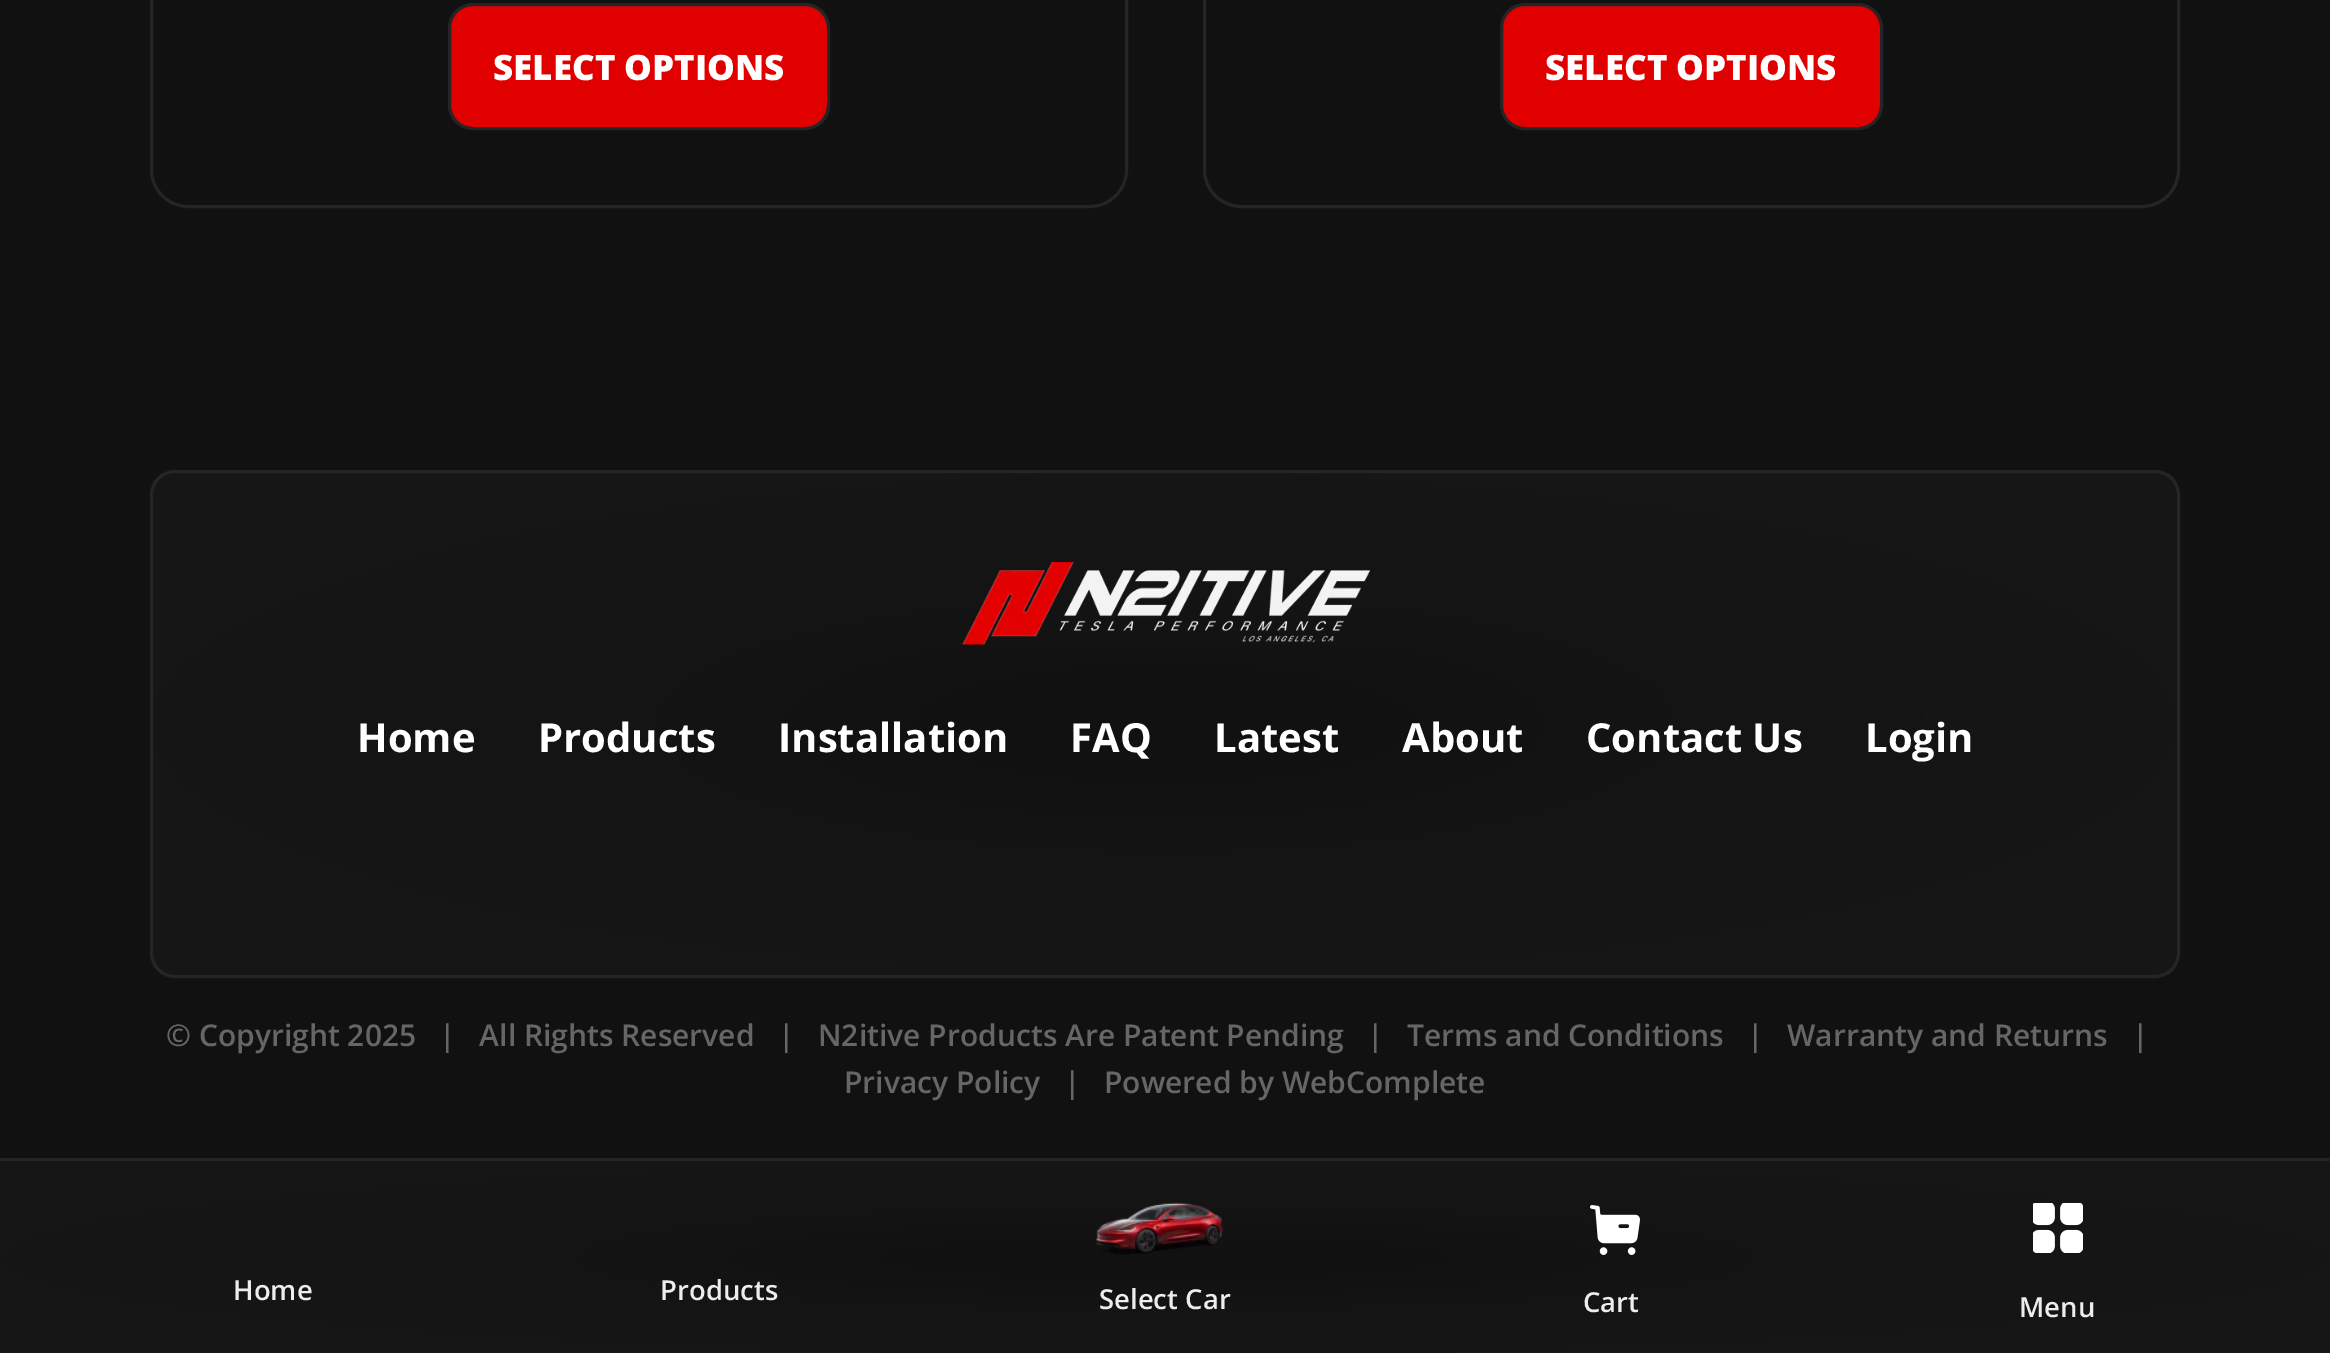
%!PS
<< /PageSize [2330 1353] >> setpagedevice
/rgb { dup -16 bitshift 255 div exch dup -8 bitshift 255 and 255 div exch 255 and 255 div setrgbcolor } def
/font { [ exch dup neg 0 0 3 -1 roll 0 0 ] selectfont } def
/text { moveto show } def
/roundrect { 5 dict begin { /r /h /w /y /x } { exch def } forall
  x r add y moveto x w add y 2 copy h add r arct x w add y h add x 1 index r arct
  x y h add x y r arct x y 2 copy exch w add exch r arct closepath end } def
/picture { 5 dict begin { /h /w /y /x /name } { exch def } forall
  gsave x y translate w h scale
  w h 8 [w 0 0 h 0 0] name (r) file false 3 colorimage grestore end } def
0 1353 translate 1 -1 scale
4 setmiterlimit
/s1 { /OpenSans-ExtraBold 35 font 16#FFFFFF rgb } def
/s2 { /OpenSans-Bold 40 font 16#FFFFFF rgb } def
/s3 { /OpenSans-SemiBold 30 font 16#666666 rgb } def
/s4 { /OpenSans-SemiBold 27.5 font 16#EDEDED rgb } def
16#111111 rgb
0 0 2330 1353 rectfill
16#252527 rgb
3 setlinewidth
151.5 -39.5 975 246 36.5 roundrect stroke
16#E10000 rgb
449.5 4.5 379 124 23.5 roundrect gsave fill grestore
16#252527 rgb
stroke
s1
(SELECT OPTIONS) 493 80 text
16#252527 rgb
1204.5 -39.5 974 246 36.5 roundrect stroke
16#E10000 rgb
1501.5 4.5 380 124 23.5 roundrect gsave fill grestore
16#252527 rgb
stroke
s1
(SELECT OPTIONS) 1545 80 text
gsave
150 470 2030 508 25 roundrect clip newpath
gsave 153 473 moveto 2178 473 lineto 2178 975 lineto 153 975 lineto closepath clip newpath 1165 724 translate 1013 251 scale
<< /ShadingType 3 /ColorSpace /DeviceRGB /Coords [0 0 0 0 0 1] /Extend [true true] /Function << /FunctionType 2 /Domain [0 1] /C0 [0.067 0.067 0.067] /C1 [0.086 0.086 0.086] /N 1 >> >> shfill grestore
grestore
16#252527 rgb
151.5 471.5 2027 505 23.5 roundrect stroke
(pic1.raw) 962 562 408 83 picture
s2
(Home) 357 752 text
(Products) 538 752 text
(Installation) 778 752 text
(FAQ) 1070 752 text
(Latest) 1214 752 text
(About) 1402 752 text
(Contact Us) 1586 752 text
(Login) 1865 752 text
s3
(© Copyright 2025   |   All Rights Reserved   |) 166 1046 text
(N2itive Products Are Patent Pending   |) 818 1046 text
(Terms and Conditions) 1407 1046 text
(|) 1747 1046 text
(Warranty and Returns) 1787 1046 text
(|) 2132 1046 text
(Privacy Policy) 844 1093 text
(|) 1064 1093 text
(Powered by WebComplete) 1104 1093 text
gsave 0 1161 moveto 2330 1161 lineto 2330 1353 lineto 0 1353 lineto closepath clip newpath 1165 1258 translate 1165 98 scale
<< /ShadingType 3 /ColorSpace /DeviceRGB /Coords [0 0 0 0 0 1] /Extend [true true] /Function << /FunctionType 2 /Domain [0 1] /C0 [0.067 0.067 0.067] /C1 [0.086 0.086 0.086] /N 1 >> >> shfill grestore
16#252527 rgb
0 1158 2330 3 rectfill
s4
(Home) 233 1300 text
(Products) 660 1300 text
(pic2.raw) 1096 1202 127 53 picture
(Select Car) 1099 1309 text
(pic3.raw) 1590 1205 50 50 picture
(Cart) 1583 1312 text
(pic4.raw) 2033 1203 50 50 picture
(Menu) 2019 1317 text
showpage
